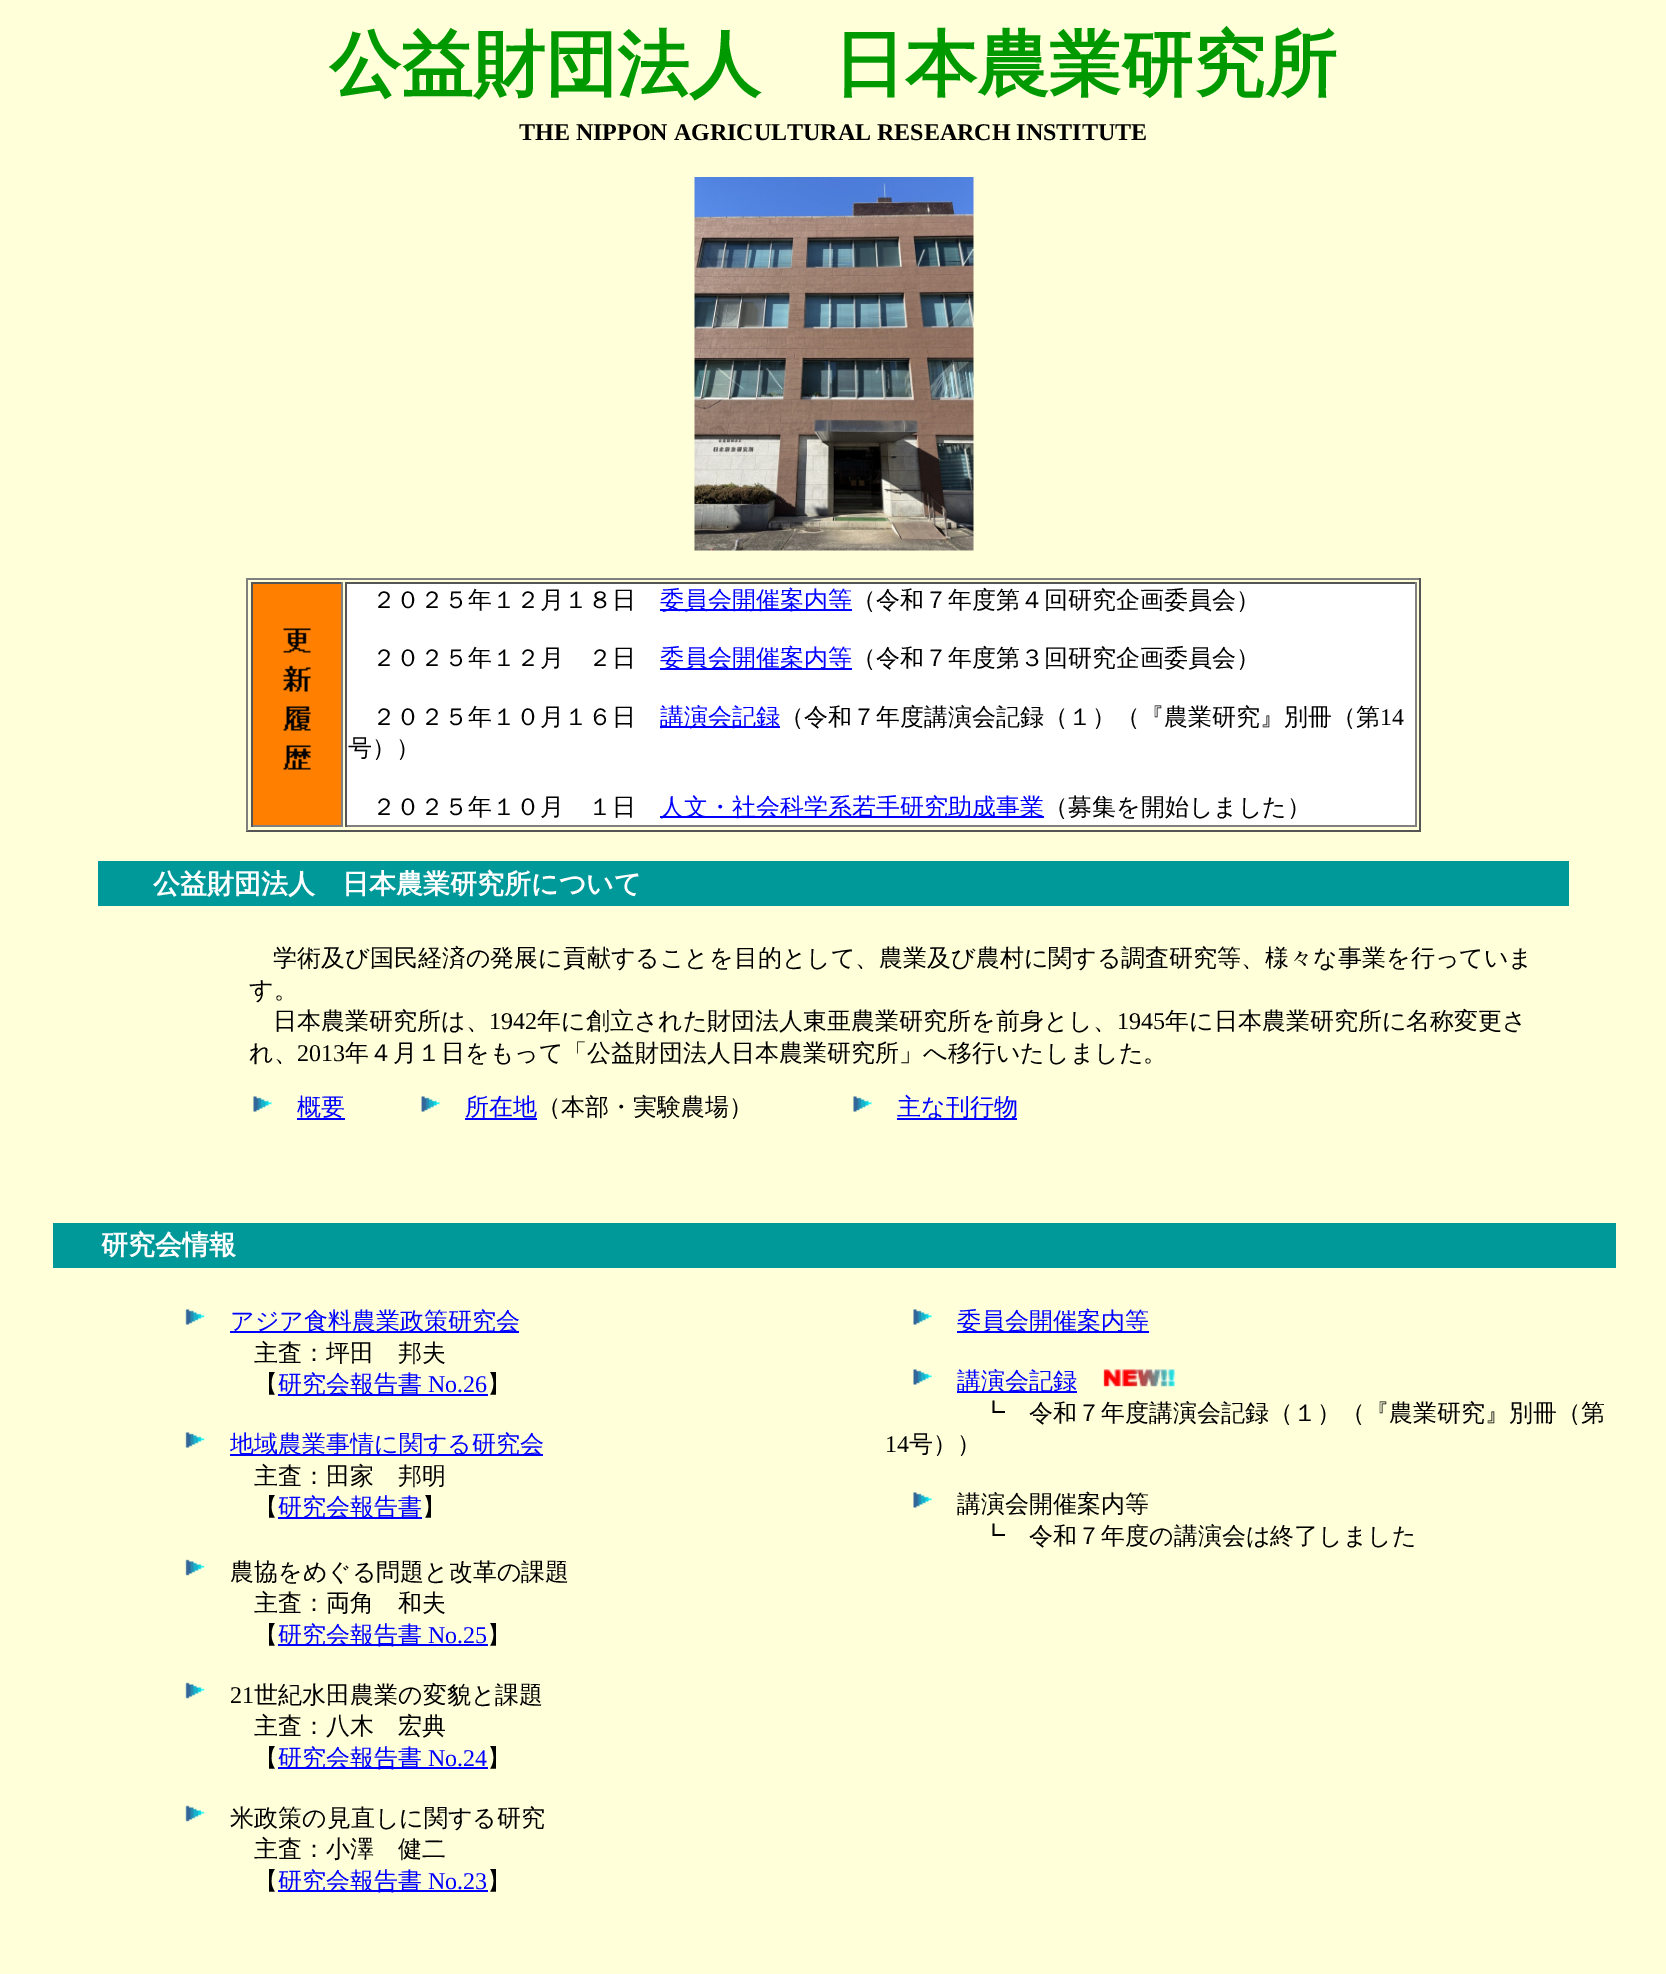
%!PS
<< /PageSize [1666 1974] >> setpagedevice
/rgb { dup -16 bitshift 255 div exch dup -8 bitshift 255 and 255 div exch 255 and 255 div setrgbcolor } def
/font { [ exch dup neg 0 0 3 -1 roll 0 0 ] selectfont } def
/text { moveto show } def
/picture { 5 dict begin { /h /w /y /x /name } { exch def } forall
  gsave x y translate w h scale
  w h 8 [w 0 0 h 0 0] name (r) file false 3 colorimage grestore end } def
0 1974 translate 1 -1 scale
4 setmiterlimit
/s1 { /WenQuanYiZenHei-Bold 72 font 16#009900 rgb } def
/s2 { /LiberationSerif-Bold 24 font 16#000000 rgb } def
/s3 { /WenQuanYiZenHei-Medium 24 font 16#000000 rgb } def
/s4 { /WenQuanYiZenHei-Medium 24 font 16#0000FF rgb } def
/s5 { /LiberationSerif-Regular 24 font 16#000000 rgb } def
/s6 { /WenQuanYiZenHei-Bold 27 font 16#FFFFFF rgb } def
/s7 { /LiberationSerif-Regular 24 font 16#0000FF rgb } def
16#FFFFD9 rgb
0 0 1666 1974 rectfill
s1
(公益財団法人　日本農業研究所) 329 89 text
s2
(THE NIPPON AGRICULTURAL RESEARCH INSTITUTE) 519 140 text
(pic1.raw) 694 177 280 374 picture
16#808080 rgb
246 578 1175 2 rectfill
16#555555 rgb
1419 578 2 253 rectfill
246 830 1175 2 rectfill
16#808080 rgb
246 578 2 253 rectfill
16#FF8000 rgb
253 584 88 241 rectfill
16#555555 rgb
251 582 91 2 rectfill
16#808080 rgb
341 582 2 245 rectfill
251 825 91 2 rectfill
16#555555 rgb
251 582 2 245 rectfill
(pic2.raw) 283 628 28 142 picture
16#FFFFFF rgb
347 584 1068 241 rectfill
16#555555 rgb
345 582 1071 2 rectfill
16#808080 rgb
1415 582 2 245 rectfill
345 825 1071 2 rectfill
16#555555 rgb
345 582 2 245 rectfill
s3
(２０２５年１２月１８日) 372 608 text
16#0000FF rgb
660 609 192 2 rectfill
(委員会開催案内等) 660 608 text
s3
(（令和７年度第４回研究企画委員会）) 852 608 text
(２０２５年１２月　２日) 372 666 text
16#0000FF rgb
660 668 192 2 rectfill
(委員会開催案内等) 660 666 text
s3
(（令和７年度第３回研究企画委員会）) 852 666 text
(２０２５年１０月１６日) 372 725 text
16#0000FF rgb
660 726 120 2 rectfill
(講演会記録) 660 725 text
s3
(（令和７年度講演会記録（１）（『農業研究』別冊（第) 780 725 text
s5
(14) 1380 725 text
s3
(号））) 348 756 text
(２０２５年１０月　１日) 372 815 text
16#0000FF rgb
660 816 384 2 rectfill
(人文・社会科学系若手研究助成事業) 660 815 text
s3
(（募集を開始しました）) 1044 815 text
16#009999 rgb
98 861 1471 45 rectfill
s6
(公益財団法人　日本農業研究所について) 153 893 text
s3
(学術及び国民経済の発展に貢献することを目的として、農業及び農村に関する調査研究等、様々な事業を行っていま) 273 966 text
(す。) 249 998 text
(日本農業研究所は、) 273 1029 text
s5
(1942) 489 1029 text
s3
(年に創立された財団法人東亜農業研究所を前身とし、) 537 1029 text
s5
(1945) 1117 1029 text
s3
(年に日本農業研究所に名称変更さ) 1165 1029 text
(れ、) 249 1061 text
s5
(2013) 297 1061 text
s3
(年４月１日をもって「公益財団法人日本農業研究所」へ移行いたしました。) 345 1061 text
(pic3.raw) 253 1096 19 16 picture
16#0000FF rgb
297 1118 48 2 rectfill
(概要) 297 1115 text
(pic4.raw) 421 1096 19 16 picture
(所在地) 465 1115 text
465 1118 72 2 rectfill
s3
(（本部・実験農場）) 537 1115 text
(pic3.raw) 853 1096 19 16 picture
16#0000FF rgb
897 1118 120 2 rectfill
(主な刊行物) 897 1115 text
16#009999 rgb
53 1223 1563 45 rectfill
s6
(研究会情報) 101 1254 text
(pic5.raw) 185 1309 20 16 picture
16#0000FF rgb
230 1331 289 2 rectfill
s4
(アジア食料農業政策研究会) 230 1329 text
s3
(主査：坪田　邦夫) 254 1361 text
(【) 254 1392 text
16#0000FF rgb
278 1394 210 2 rectfill
(研究会報告書) 278 1392 text
s7
(No.26) 428 1392 text
s3
(】) 487 1392 text
(pic5.raw) 185 1432 20 16 picture
16#0000FF rgb
230 1454 313 2 rectfill
(地域農業事情に関する研究会) 230 1452 text
s3
(主査：田家　邦明) 254 1484 text
(【) 254 1515 text
16#0000FF rgb
278 1517 144 2 rectfill
(研究会報告書) 278 1515 text
s3
(】) 422 1515 text
(pic6.raw) 185 1559 20 17 picture
(農協をめぐる問題と改革の課題) 230 1580 text
(主査：両角　和夫) 254 1611 text
(【) 254 1643 text
16#0000FF rgb
278 1644 210 2 rectfill
(研究会報告書) 278 1643 text
s7
(No.25) 428 1643 text
s3
(】) 487 1643 text
(pic6.raw) 185 1682 20 17 picture
s5
(21) 230 1703 text
s3
(世紀水田農業の変貌と課題) 254 1703 text
(主査：八木　宏典) 254 1734 text
(【) 254 1766 text
16#0000FF rgb
278 1767 210 2 rectfill
(研究会報告書) 278 1766 text
s7
(No.24) 428 1766 text
s3
(】) 487 1766 text
(pic6.raw) 185 1805 20 17 picture
(米政策の見直しに関する研究) 230 1826 text
(主査：小澤　健二) 254 1857 text
(【) 254 1889 text
16#0000FF rgb
278 1890 210 2 rectfill
(研究会報告書) 278 1889 text
s7
(No.23) 428 1889 text
s3
(】) 487 1889 text
(pic3.raw) 913 1309 19 16 picture
16#0000FF rgb
957 1331 192 2 rectfill
(委員会開催案内等) 957 1329 text
(pic3.raw) 913 1369 19 16 picture
957 1391 120 2 rectfill
(講演会記録) 957 1389 text
(pic7.raw) 1103 1369 72 18 picture
s3
(┗　令和７年度講演会記録（１）（『農業研究』別冊（第) 981 1421 text
s5
(14) 885 1452 text
s3
(号））) 909 1452 text
(pic3.raw) 913 1492 19 16 picture
(講演会開催案内等) 957 1512 text
(┗　令和７年度の講演会は終了しました) 981 1544 text
showpage
